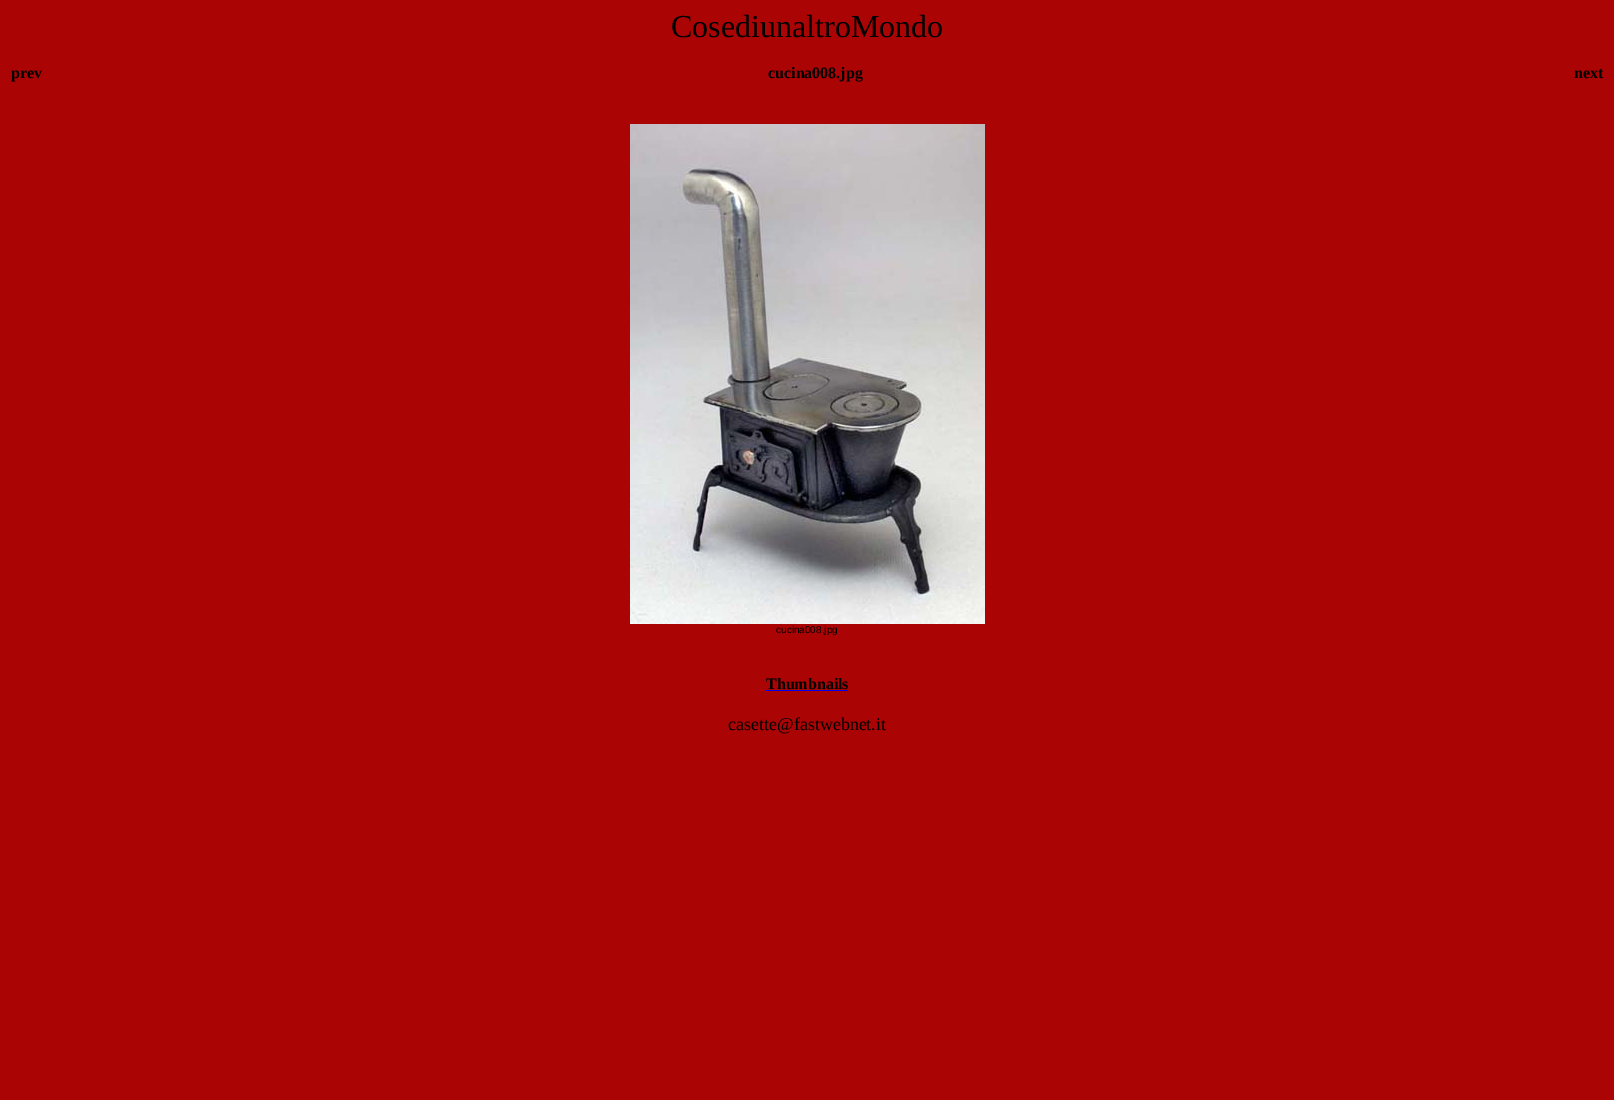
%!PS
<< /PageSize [1614 1100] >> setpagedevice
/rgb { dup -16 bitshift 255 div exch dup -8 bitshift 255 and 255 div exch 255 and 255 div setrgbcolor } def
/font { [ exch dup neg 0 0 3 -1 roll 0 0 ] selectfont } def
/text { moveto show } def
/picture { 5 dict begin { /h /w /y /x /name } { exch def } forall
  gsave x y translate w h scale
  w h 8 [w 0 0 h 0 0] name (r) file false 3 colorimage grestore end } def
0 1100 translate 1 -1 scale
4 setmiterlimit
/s1 { /LiberationSerif-Regular 32 font 16#000000 rgb } def
/s2 { /LiberationSerif-Bold 16 font 16#000000 rgb } def
/s3 { /LiberationSans-Regular 10 font 16#000000 rgb } def
/s4 { /LiberationSerif-Regular 18 font 16#000000 rgb } def
16#AA0404 rgb
0 0 1614 1100 rectfill
s1
(CosediunaltroMondo) 671 37 text
s2
(prev) 11 78 text
(cucina008.jpg) 768 78 text
(next) 1574 78 text
(pic1.raw) 630 124 355 500 picture
s3
(cucina008.jpg) 776 633 text
s2
(Thumbnails) 766 689 text
16#0000EE rgb
766 690 82 1 rectfill
s4
(casette@fastwebnet.it) 728 730 text
showpage
